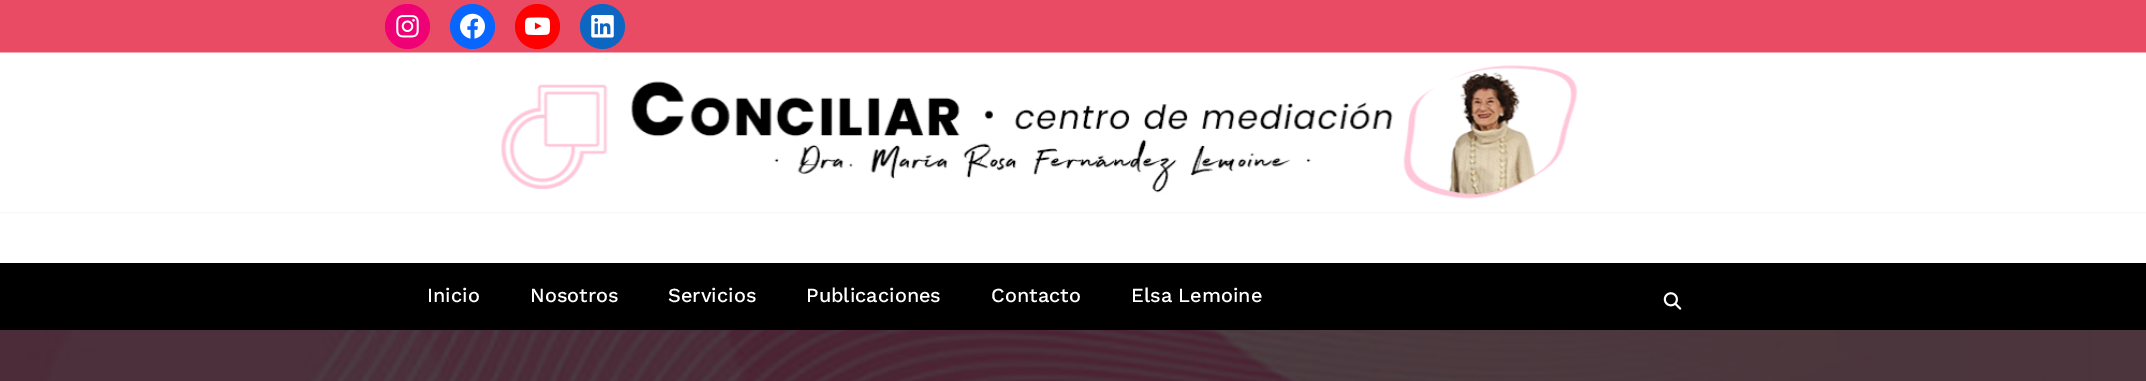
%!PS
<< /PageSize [2146 381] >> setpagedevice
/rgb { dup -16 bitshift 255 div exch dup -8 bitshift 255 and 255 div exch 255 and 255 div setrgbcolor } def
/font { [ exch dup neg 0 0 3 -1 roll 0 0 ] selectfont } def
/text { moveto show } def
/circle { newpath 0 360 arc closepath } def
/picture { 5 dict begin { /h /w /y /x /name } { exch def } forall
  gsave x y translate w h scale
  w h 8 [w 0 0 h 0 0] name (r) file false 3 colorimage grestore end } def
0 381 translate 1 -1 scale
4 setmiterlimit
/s1 { /WorkSans-Medium 20 font 16#FFFFFF rgb } def
16#EFEFEF rgb
0 0 2146 381 rectfill
16#E84B63 rgb
0 0 2146 53 rectfill
16#F00075 rgb
407.5 26.5 22.5 circle fill
(pic1.raw) 396 15 23 23 picture
16#0866FF rgb
472.5 26.5 22.5 circle fill
(pic2.raw) 460 13 25 26 picture
16#FF0000 rgb
537.5 26.5 22.5 circle fill
(pic3.raw) 525 17 25 19 picture
16#0D66C2 rgb
602.5 26.5 22.5 circle fill
(pic4.raw) 591 15 23 23 picture
(pic5.raw) 0 52 2146 161 picture
16#FFFFFF rgb
0 213 2146 50 rectfill
16#000000 rgb
0 263 2146 67 rectfill
s1
(Inicio) 427 302 text
(Nosotros) 530 302 text
(Servicios) 668 302 text
(Publicaciones) 806 302 text
(Contacto) 991 302 text
(Elsa Lemoine) 1131 302 text
(pic6.raw) 1663 292 19 18 picture
(pic7.raw) 0 330 2146 51 picture
showpage
